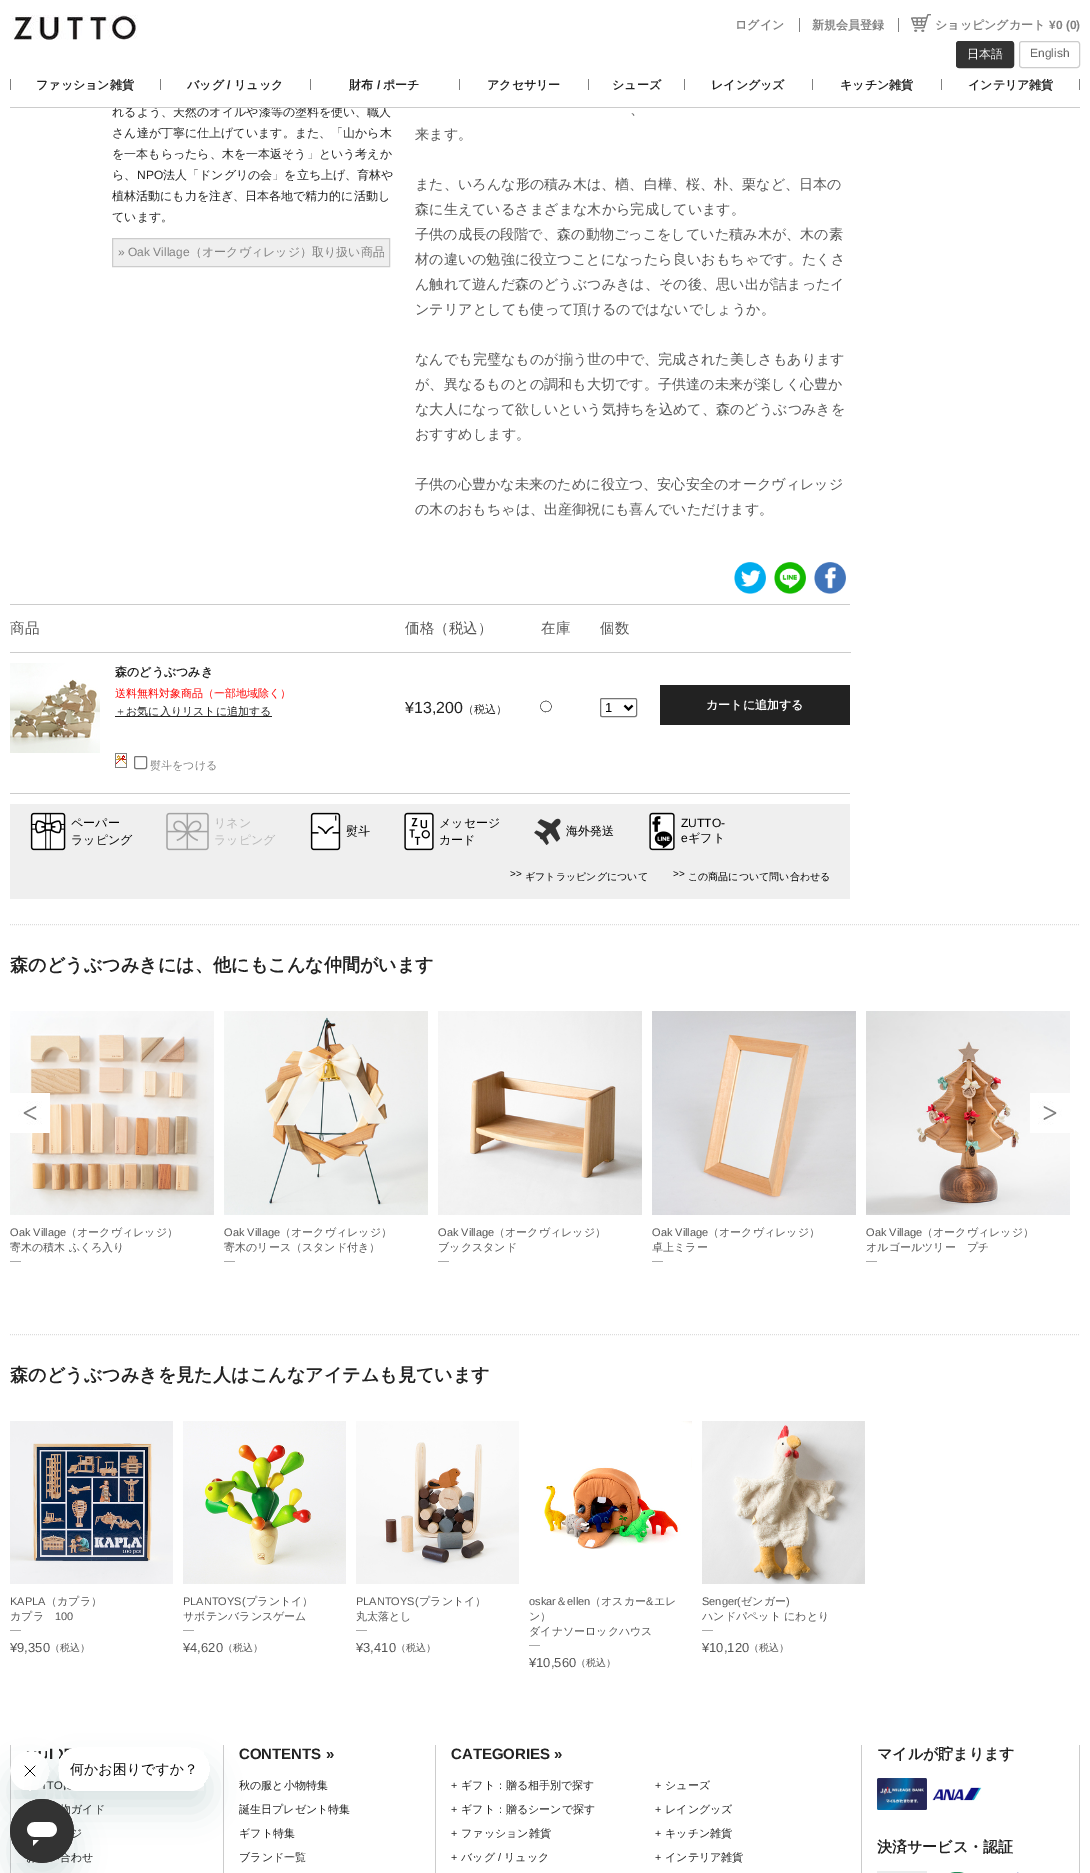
%!PS
<< /PageSize [1090 1873] /PageUsesTransparency true >> setpagedevice
/rgb { dup -16 bitshift 255 div exch dup -8 bitshift 255 and 255 div exch 255 and 255 div setrgbcolor } def
/font { [ exch dup neg 0 0 3 -1 roll 0 0 ] selectfont } def
/text { moveto show } def
/alpha { dup .setfillconstantalpha .setstrokeconstantalpha } def
/roundrect { 5 dict begin { /r /h /w /y /x } { exch def } forall
  x r add y moveto x w add y 2 copy h add r arct x w add y h add x 1 index r arct
  x y h add x y r arct x y 2 copy exch w add exch r arct closepath end } def
/shadow { 12 dict begin { /a /b /q /h /w /y /x } { exch def } forall gsave /was 0 def
  9 -2 -9 { dup b mul 4 div /e exch def 1 sub .425 mul 2.718 exch exp 1 add a .99 .min exch div /now exch def
    1 1 now sub 1 was sub div sub alpha /was now def
    w h .min e 2 mul add 0 gt { x e sub y e sub w e 2 mul add h e 2 mul add
      q e add b .6 mul add w h .min 2 div e add .min 0 .max roundrect fill } if } for grestore end } def
/picture { 5 dict begin { /h /w /y /x /name } { exch def } forall
  gsave x y translate w h scale
  w h 8 [w 0 0 h 0 0] name (r) file false 3 colorimage grestore end } def
0 .pushpdf14devicefilter
0 1873 translate 1 -1 scale
4 setmiterlimit
/s1 { /WenQuanYiZenHei-Medium 12 font 16#222222 rgb } def
/s2 { /WenQuanYiZenHei-Bold 12 font 16#808080 rgb } def
/s3 { /LiberationSans-Bold 12 font 16#808080 rgb } def
/s4 { /WenQuanYiZenHei-Medium 12 font 16#FFFFFF rgb } def
/s5 { /LiberationSans-Regular 12 font 16#666666 rgb } def
/s6 { /WenQuanYiZenHei-Bold 12 font 16#222222 rgb } def
/s7 { /LiberationSans-Bold 12 font 16#222222 rgb } def
/s8 { /LiberationSans-Regular 12 font 16#222222 rgb } def
/s9 { /LiberationSans-Regular 12 font 16#808080 rgb } def
/s10 { /WenQuanYiZenHei-Medium 12 font 16#808080 rgb } def
/s11 { /WenQuanYiZenHei-Medium 14.1 font 16#555555 rgb } def
/s12 { /WenQuanYiZenHei-Medium 14.5 font 16#555555 rgb } def
/s13 { /WenQuanYiZenHei-Medium 11 font 16#FF0000 rgb } def
/s14 { /WenQuanYiZenHei-Medium 11 font 16#222222 rgb } def
/s15 { /WenQuanYiZenHei-Medium 11 font 16#808080 rgb } def
/s16 { /LiberationSans-Regular 16 font 16#222222 rgb } def
/s17 { /IPAPGothic-Regular 12 font 16#000000 rgb } def
/s18 { /LiberationSans-Regular 13 font 16#000000 rgb } def
/s19 { /WenQuanYiZenHei-Bold 12 font 16#FFFFFF rgb } def
/s20 { /WenQuanYiZenHei-Medium 12 font 16#000000 rgb } def
/s21 { /WenQuanYiZenHei-Medium 12 font 16#B8B8B8 rgb } def
/s22 { /LiberationSans-Regular 12 font 16#000000 rgb } def
/s23 { /LiberationSans-Regular 10 font 16#000000 rgb } def
/s24 { /WenQuanYiZenHei-Medium 10 font 16#000000 rgb } def
/s25 { /WenQuanYiZenHei-Bold 18.1 font 16#222222 rgb } def
/s26 { /LiberationSans-Regular 11 font 16#555555 rgb } def
/s27 { /WenQuanYiZenHei-Medium 11 font 16#555555 rgb } def
/s28 { /LiberationSans-Regular 13 font 16#555555 rgb } def
/s29 { /WenQuanYiZenHei-Medium 10 font 16#555555 rgb } def
/s30 { /LiberationSans-Bold 15 font 16#222222 rgb } def
/s31 { /LiberationSans-Regular 11 font 16#222222 rgb } def
/s32 { /WenQuanYiZenHei-Bold 15 font 16#222222 rgb } def
16#FFFFFF rgb
0 0 1090 1873 rectfill
s1
(れるよう、天然のオイルや漆等の塗料を使い、職人) 112 116 text
16#FFFFFF rgb
154 106 233 1 rectfill
(pic1.raw) 10 15 128 25 picture
s2
(ログイン) 735 29 text
799 18 1 14 rectfill
(新規会員登録) 812 29 text
898 18 1 14 rectfill
(pic2.raw) 911 14 20 18 picture
(ショッピングカート) 935 29 text
s3
(¥0 \(0\)) 1049 29 text
16#333333 rgb
956.5 41.5 57 26 2.5 roundrect gsave fill grestore
stroke
s4
(日本語) 967 58 text
16#CCCCCC rgb
1019.5 41.5 60 26 2.5 roundrect stroke
s5
(English) 1030 57 text
16#808080 rgb
1079 79 1 11 rectfill
16#CCCCCC rgb
10 107 1070 1 rectfill
16#808080 rgb
10 79 1 11 rectfill
s6
(ファッション雑貨) 36 89 text
16#808080 rgb
160 79 1 11 rectfill
s6
(バッグ) 187 89 text
s7
(/) 227 89 text
s6
(リュック) 234 89 text
16#808080 rgb
310 79 1 11 rectfill
s6
(財布) 349 89 text
s7
(/) 377 89 text
s6
(ポーチ) 383 89 text
16#808080 rgb
459 79 1 11 rectfill
s6
(アクセサリー) 487 89 text
16#808080 rgb
588 79 1 11 rectfill
s6
(シューズ) 612 89 text
16#808080 rgb
684 79 1 11 rectfill
s6
(レイングッズ) 711 89 text
16#808080 rgb
812 79 1 11 rectfill
s6
(キッチン雑貨) 840 89 text
16#808080 rgb
941 79 1 11 rectfill
s6
(インテリア雑貨) 968 89 text
s1
(さん達が丁寧に仕上げています。また、「山から木) 112 137 text
(を一本もらったら、木を一本返そう」という考えか) 112 158 text
(ら、) 112 179 text
s8
(NPO) 137 179 text
s1
(法人「ドングリの会」を立ち上げ、育林や) 163 179 text
(植林活動にも力を注ぎ、日本各地で精力的に活動し) 112 200 text
(ています。) 112 221 text
16#EFEFEF rgb
112.5 238.5 moveto 389.5 238.5 lineto 389.5 266.5 lineto 112.5 266.5 lineto closepath gsave fill grestore
16#CCCCCC rgb
stroke
s9
(» Oak Village) 118 256 text
s10
(（オークヴィレッジ）取り扱い商品) 190 256 text
s11
(、) 630 114 text
(来ます。) 415 139 text
(また、いろんな形の積み木は、楢、白樺、桜、朴、栗など、日本の) 415 189 text
(森に生えているさまざまな木から完成しています。) 415 214 text
(子供の成長の段階で、森の動物ごっこをしていた積み木が、木の素) 415 239 text
(材の違いの勉強に役立つことになったら良いおもちゃです。たくさ) 415 264 text
(ん触れて遊んだ森のどうぶつみきは、その後、思い出が詰まったイ) 415 289 text
(ンテリアとしても使って頂けるのではないでしょうか。) 415 314 text
(なんでも完璧なものが揃う世の中で、完成された美しさもあります) 415 364 text
(が、異なるものとの調和も大切です。子供達の未来が楽しく心豊か) 415 389 text
(な大人になって欲しいという気持ちを込めて、森のどうぶつみきを) 415 414 text
(おすすめします。) 415 439 text
(子供の心豊かな未来のために役立つ、安心安全のオークヴィレッジ) 415 489 text
(の木のおもちゃは、出産御祝にも喜んでいただけます。) 415 514 text
(pic3.raw) 734 562 32 32 picture
(pic4.raw) 774 562 32 32 picture
(pic5.raw) 814 562 32 32 picture
16#CCCCCC rgb
10 604 840 1 rectfill
10 793 840 1 rectfill
s12
(商品) 10 633 text
(価格（税込）) 405 633 text
(在庫) 541 633 text
(個数) 600 633 text
(pic6.raw) 10 663 90 90 picture
s6
(森のどうぶつみき) 115 676 text
s13
(送料無料対象商品（一部地域除く）) 115 697 text
16#222222 rgb
115 716 157 1 rectfill
(＋お気に入りリストに追加する) 115 715 text
(pic7.raw) 115 753 12 15 picture
16#767676 rgb
134.5 756.5 12 12 1.5 roundrect stroke
s15
(熨斗をつける) 150 769 text
s16
(¥13,200) 405 713 text
s14
(（税込）) 463 713 text
s17
(◯) 540 711 text
16#767676 rgb
600.5 698.5 36 18 1.5 roundrect stroke
16#000000 rgb
2 setlinewidth
624.5 705.5 moveto 628.5 709.5 lineto 632.5 705.5 lineto stroke
s18
(1) 605 712 text
16#CCCCCC rgb
10 652 841 1 rectfill
16#222222 rgb
660 685 190 40 rectfill
s19
(カートに追加する) 706 709 text
16#EFEFEF rgb
10 804 840 95 rectfill
(pic8.raw) 30 812 36 39 picture
s20
(ペーパー) 71 827 text
(ラッピング) 71 844 text
(pic9.raw) 166 812 43 39 picture
s21
(リネン) 214 827 text
(ラッピング) 214 844 text
(pic10.raw) 310 812 31 39 picture
s20
(熨斗) 346 835 text
(pic11.raw) 404 812 30 39 picture
(メッセージ) 439 827 text
(カード) 439 844 text
(pic12.raw) 534 818 27 27 picture
(海外発送) 566 835 text
(pic13.raw) 649 812 26 39 picture
s22
(ZUTTO-) 681 827 text
(e) 681 842 text
s20
(ギフト) 688 842 text
s23
(>>) 510 877 text
s24
(ギフトラッピングについて) 525 880 text
s23
(>>) 673 877 text
s24
(この商品について問い合わせる) 688 880 text
16#DCDCDC rgb
1 setlinewidth
[1 1] 0 setdash
10 924.5 moveto 1080 924.5 lineto stroke
s25
(森のどうぶつみきには、他にもこんな仲間がいます) 10 971 text
(pic16.raw) 10 1011 204 204 picture
(pic14.raw) 10 1093 40 40 picture
(pic20.raw) 866 1011 204 204 picture
(pic15.raw) 1030 1093 40 40 picture
s26
(Oak Village) 10 1236 text
s27
(（オークヴィレッジ）) 66 1236 text
(寄木の積木 ふくろ入り) 10 1251 text
16#AAAAAA rgb
10 1261 11 1 rectfill
(pic17.raw) 224 1011 204 204 picture
s26
(Oak Village) 224 1236 text
s27
(（オークヴィレッジ）) 280 1236 text
(寄木のリース（スタンド付き）) 224 1251 text
16#AAAAAA rgb
224 1261 11 1 rectfill
(pic18.raw) 438 1011 204 204 picture
s26
(Oak Village) 438 1236 text
s27
(（オークヴィレッジ）) 494 1236 text
(ブックスタンド) 438 1251 text
16#AAAAAA rgb
438 1261 11 1 rectfill
(pic19.raw) 652 1011 204 204 picture
s26
(Oak Village) 652 1236 text
s27
(（オークヴィレッジ）) 708 1236 text
(卓上ミラー) 652 1251 text
16#AAAAAA rgb
652 1261 11 1 rectfill
s26
(Oak Village) 866 1236 text
s27
(（オークヴィレッジ）) 922 1236 text
(オルゴールツリー　プチ) 866 1251 text
16#AAAAAA rgb
866 1261 11 1 rectfill
16#DCDCDC rgb
10 1334.5 moveto 1080 1334.5 lineto stroke
s25
(森のどうぶつみきを見た人はこんなアイテムも見ています) 10 1381 text
(pic21.raw) 10 1421 163 163 picture
s26
(KAPLA) 10 1605 text
s27
(（カプラ）) 46 1605 text
(カプラ) 10 1620 text
s26
(100) 55 1620 text
16#AAAAAA rgb
10 1630 11 1 rectfill
s28
(¥9,350) 10 1652 text
s29
(（税込）) 50 1651 text
(pic22.raw) 183 1421 163 163 picture
s26
(PLANTOYS\() 183 1605 text
s27
(プラントイ）) 246 1605 text
(サボテンバランスゲーム) 183 1620 text
16#AAAAAA rgb
183 1630 11 1 rectfill
s28
(¥4,620) 183 1652 text
s29
(（税込）) 223 1651 text
(pic23.raw) 356 1421 163 163 picture
s26
(PLANTOYS\() 356 1605 text
s27
(プラントイ）) 419 1605 text
(丸太落とし) 356 1620 text
16#AAAAAA rgb
356 1630 11 1 rectfill
s28
(¥3,410) 356 1652 text
s29
(（税込）) 396 1651 text
(pic24.raw) 544 1421 148 128 picture
s26
(oskar) 529 1605 text
s27
(＆) 556 1605 text
s26
(ellen) 567 1605 text
s27
(（オスカー) 590 1605 text
s26
(&) 646 1605 text
s27
(エレ) 654 1605 text
(ン）) 529 1620 text
(ダイナソーロックハウス) 529 1635 text
16#AAAAAA rgb
529 1645 11 1 rectfill
s28
(¥10,560) 529 1667 text
s29
(（税込）) 576 1666 text
(pic25.raw) 702 1421 163 163 picture
s26
(Senger\() 702 1605 text
s27
(ゼンガー) 741 1605 text
s26
(\)) 786 1605 text
s27
(ハンドパペット にわとり) 702 1620 text
16#AAAAAA rgb
702 1630 11 1 rectfill
s28
(¥10,120) 702 1652 text
s29
(（税込）) 749 1651 text
16#CCCCCC rgb
1079 1745 1 128 rectfill
10 1745 1 128 rectfill
s30
(I) 49 1759 text
s31
(TO) 47 1789 text
s14
(ガイド) 71 1813 text
(ジ) 71 1837 text
(わせ) 71 1861 text
16#CCCCCC rgb
223 1745 1 128 rectfill
s30
(CONTENTS ») 239 1759 text
s14
(秋の服と小物特集) 239 1789 text
(誕生日プレゼント特集) 239 1813 text
(ギフト特集) 239 1837 text
(ブランド一覧) 239 1861 text
16#CCCCCC rgb
435 1745 1 128 rectfill
s30
(CATEGORIES ») 451 1759 text
s31
(+) 451 1789 text
s14
(ギフト：贈る相手別で探す) 461 1789 text
s31
(+) 451 1813 text
s14
(ギフト：贈るシーンで探す) 461 1813 text
s31
(+) 451 1837 text
s14
(ファッション雑貨) 461 1837 text
s31
(+) 451 1861 text
s14
(バッグ) 461 1861 text
s31
(/) 498 1861 text
s14
(リュック) 504 1861 text
s31
(+) 655 1789 text
s14
(シューズ) 665 1789 text
s31
(+) 655 1813 text
s14
(レイングッズ) 665 1813 text
s31
(+) 655 1837 text
s14
(キッチン雑貨) 665 1837 text
s31
(+) 655 1861 text
s14
(インテリア雑貨) 665 1861 text
16#CCCCCC rgb
861 1745 1 128 rectfill
s32
(マイルが貯まります) 877 1759 text
(pic26.raw) 877 1778 50 32 picture
(pic27.raw) 932 1787 50 14 picture
(決済サービス・認証) 877 1852 text
16#EAEDED rgb
877 1871 50 2 rectfill
(pic28.raw) 950 1872 14 1 picture
(pic29.raw) 1017 1872 2 1 picture
gsave
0 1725 moveto 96 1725 lineto 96 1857 lineto 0 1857 lineto closepath 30 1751 moveto 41 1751 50 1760 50 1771 curveto 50 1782 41 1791 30 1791 curveto 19 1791 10 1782 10 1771 curveto 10 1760 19 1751 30 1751 curveto closepath eoclip newpath
16#17494D rgb
10 1771 40 40 20 15 0.15 shadow
grestore
(pic31.raw) 10 1751 37 39 picture
gsave
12 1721 moveto 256 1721 lineto 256 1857 lineto 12 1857 lineto closepath 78 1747 moveto 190 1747 lineto 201 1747 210 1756 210 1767 curveto 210 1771 lineto 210 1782 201 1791 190 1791 curveto 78 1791 lineto 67 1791 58 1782 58 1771 curveto 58 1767 lineto 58 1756 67 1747 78 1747 curveto closepath eoclip newpath
16#17494D rgb
58 1767 152 44 20 15 0.15 shadow
grestore
(pic30.raw) 59 1748 145 43 picture
16#17494D rgb
10 1819 64 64 32 15 0.15 shadow
(pic32.raw) 10 1799 64 64 picture
.poppdf14devicefilter showpage
